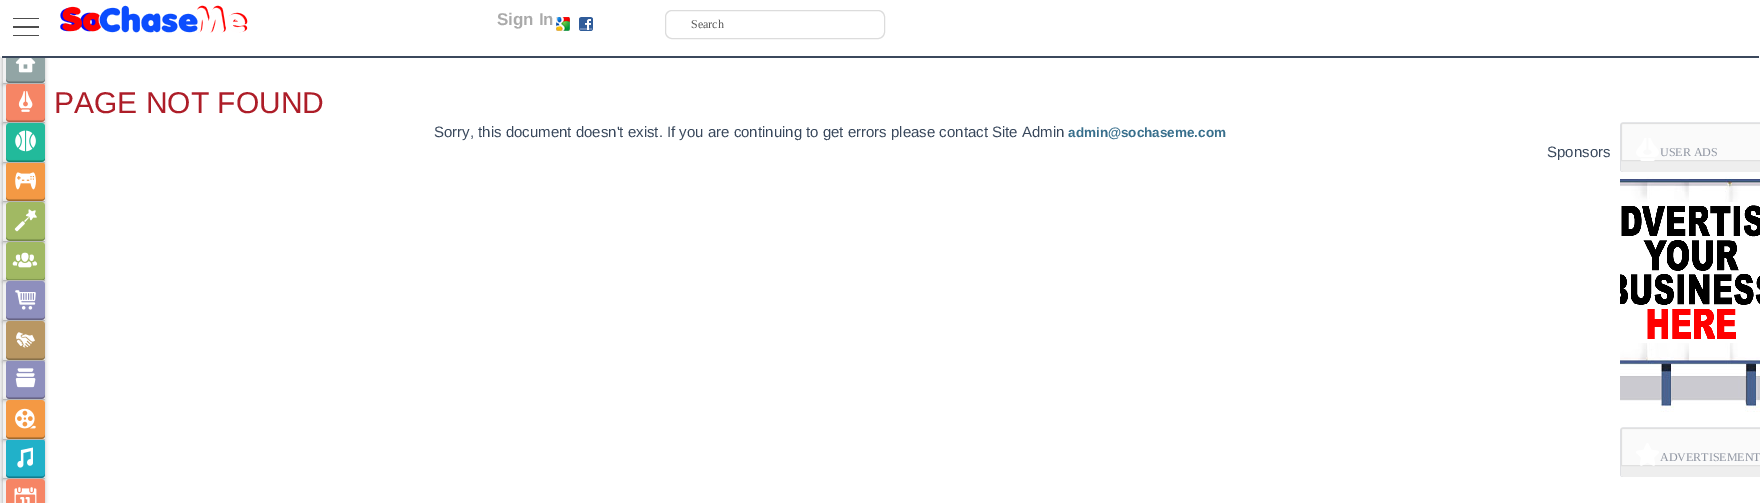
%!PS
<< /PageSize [1760 503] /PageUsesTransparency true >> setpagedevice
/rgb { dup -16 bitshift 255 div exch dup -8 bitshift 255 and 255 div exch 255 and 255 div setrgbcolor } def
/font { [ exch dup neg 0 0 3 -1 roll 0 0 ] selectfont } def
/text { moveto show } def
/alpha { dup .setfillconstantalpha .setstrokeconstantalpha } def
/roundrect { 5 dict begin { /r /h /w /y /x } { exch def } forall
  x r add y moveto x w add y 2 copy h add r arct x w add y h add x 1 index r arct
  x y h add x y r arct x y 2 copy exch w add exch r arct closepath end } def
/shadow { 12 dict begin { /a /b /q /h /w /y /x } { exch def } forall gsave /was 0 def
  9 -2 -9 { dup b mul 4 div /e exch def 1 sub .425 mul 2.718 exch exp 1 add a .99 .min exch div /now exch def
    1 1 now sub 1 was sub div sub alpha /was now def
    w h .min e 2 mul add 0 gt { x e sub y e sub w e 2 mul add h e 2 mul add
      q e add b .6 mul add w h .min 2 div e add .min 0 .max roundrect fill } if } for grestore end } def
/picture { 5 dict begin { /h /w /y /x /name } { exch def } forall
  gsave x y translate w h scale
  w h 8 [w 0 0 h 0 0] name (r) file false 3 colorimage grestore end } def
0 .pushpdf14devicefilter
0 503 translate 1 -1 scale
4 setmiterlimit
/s1 { /LiberationSans-Bold 17 font 16#AAAAAA rgb } def
/s2 { /LiberationSerif-Regular 12 font 16#585858 rgb } def
/s3 { /LiberationSans-Regular 30 font 16#AD1D28 rgb } def
/s4 { /LiberationSans-Regular 15 font 16#39485C rgb } def
/s5 { /LiberationSans-Bold 13.5 font 16#386F8C rgb } def
/s6 { /LiberationSerif-Regular 12 font 16#9197A3 rgb } def
16#FFFFFF rgb
0 0 1760 503 rectfill
16#000000 rgb
0 38 45 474 3 2 0.25 shadow
16#F1F1F1 rgb
0 55 45 448 rectfill
gsave
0 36 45 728 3 roundrect clip newpath
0 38 moveto 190 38 lineto 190 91 lineto 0 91 lineto closepath 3 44 moveto 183 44 lineto 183 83 lineto 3 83 lineto closepath eoclip newpath
16#000000 rgb
3 45 180 39 0 2 0.3 shadow
grestore
16#FFFFFF rgb
0 0 1760 58 3 roundrect fill
16#4D4D4D rgb
13 18 26 1 rectfill
13 26 26 2 rectfill
13 35 26 1 rectfill
(pic1.raw) 60 5 188 28 picture
16#3B485C rgb
2 56 1757 2 rectfill
s1
(Sign In) 497 25 text
(pic2.raw) 556 17 14 14 picture
(pic3.raw) 579 17 14 14 picture
16#DCDCDC rgb
665.5 10.5 219 28 6.5 roundrect stroke
s2
(Search) 691 28 text
s3
(PAGE NOT FOUND) 54 113 text
s4
(Sorry, this document doesn't exist. If you are continuing to get errors please contact Site Admin) 434 137 text
s5
(admin@sochaseme.com) 1068 137 text
s4
(Sponsors) 1547 157 text
16#EEEEEE rgb
1623 123 moveto 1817 123 lineto 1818 123 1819 124 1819 125 curveto 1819 169 lineto 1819 171 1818 172 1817 172 curveto 1623 172 lineto 1622 172 1621 171 1621 169 curveto 1621 125 lineto 1621 124 1622 123 1623 123 curveto closepath fill
16#E5E6E9 rgb
1623 122 moveto 1621 123 lineto 1622 124 lineto 1623 123 lineto 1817 123 lineto 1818 124 lineto 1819 123 lineto 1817 122 lineto closepath fill
16#DFE0E4 rgb
1620 125 moveto 1620 169 lineto 1620 171 1621 172 1623 172 curveto 1621 171 lineto 1621 169 1621 129 1621 125 curveto 1622 124 lineto 1621 123 lineto closepath fill
16#FAFAFA rgb
1623 125 137 35 rectfill
gsave
1622 124 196 36 rectclip
16#FFFFFF rgb
1523 25 moveto 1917 25 lineto 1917 259 lineto 1523 259 lineto closepath 1623 125 moveto 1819 125 lineto 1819 161 lineto 1623 161 lineto closepath eofill
grestore
16#E0E0E0 rgb
1621.5 123.5 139 37 rectstroke
(pic4.raw) 1636 138 23 23 picture
s6
(USER ADS) 1660 156 text
(pic5.raw) 1620 177 140 235 picture
16#EEEEEE rgb
1623 428 moveto 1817 428 lineto 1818 428 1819 429 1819 430 curveto 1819 474 lineto 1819 476 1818 477 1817 477 curveto 1623 477 lineto 1622 477 1621 476 1621 474 curveto 1621 430 lineto 1621 429 1622 428 1623 428 curveto closepath fill
16#E5E6E9 rgb
1623 427 moveto 1621 428 lineto 1622 429 lineto 1623 428 lineto 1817 428 lineto 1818 429 lineto 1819 428 lineto 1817 427 lineto closepath fill
16#DFE0E4 rgb
1620 430 moveto 1620 474 lineto 1620 476 1621 477 1623 477 curveto 1621 476 lineto 1621 474 1621 434 1621 430 curveto 1622 429 lineto 1621 428 lineto closepath fill
16#FAFAFA rgb
1623 430 137 35 rectfill
gsave
1622 429 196 36 rectclip
16#FFFFFF rgb
1523 330 moveto 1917 330 lineto 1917 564 lineto 1523 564 lineto closepath 1623 430 moveto 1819 430 lineto 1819 466 lineto 1623 466 lineto closepath eofill
grestore
16#E0E0E0 rgb
1621.5 428.5 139 37 rectstroke
(pic6.raw) 1636 443 23 23 picture
s6
(ADVERTISEMENT) 1660 461 text
(pic7.raw) 6 58 39 25 picture
gsave
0 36 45 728 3 roundrect clip newpath
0 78 moveto 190 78 lineto 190 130 lineto 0 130 lineto closepath 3 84 moveto 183 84 lineto 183 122 lineto 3 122 lineto closepath eoclip newpath
16#000000 rgb
3 85 180 38 0 2 0.3 shadow
grestore
(pic8.raw) 6 84 39 38 picture
gsave
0 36 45 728 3 roundrect clip newpath
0 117 moveto 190 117 lineto 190 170 lineto 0 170 lineto closepath 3 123 moveto 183 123 lineto 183 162 lineto 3 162 lineto closepath eoclip newpath
16#000000 rgb
3 124 180 39 0 2 0.3 shadow
grestore
(pic9.raw) 6 123 39 39 picture
gsave
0 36 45 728 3 roundrect clip newpath
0 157 moveto 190 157 lineto 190 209 lineto 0 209 lineto closepath 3 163 moveto 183 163 lineto 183 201 lineto 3 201 lineto closepath eoclip newpath
16#000000 rgb
3 164 180 38 0 2 0.3 shadow
grestore
(pic10.raw) 6 163 39 38 picture
gsave
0 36 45 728 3 roundrect clip newpath
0 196 moveto 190 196 lineto 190 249 lineto 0 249 lineto closepath 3 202 moveto 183 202 lineto 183 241 lineto 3 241 lineto closepath eoclip newpath
16#000000 rgb
3 203 180 39 0 2 0.3 shadow
grestore
(pic11.raw) 6 202 39 39 picture
gsave
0 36 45 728 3 roundrect clip newpath
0 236 moveto 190 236 lineto 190 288 lineto 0 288 lineto closepath 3 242 moveto 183 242 lineto 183 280 lineto 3 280 lineto closepath eoclip newpath
16#000000 rgb
3 243 180 38 0 2 0.3 shadow
grestore
(pic12.raw) 6 242 39 38 picture
gsave
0 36 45 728 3 roundrect clip newpath
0 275 moveto 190 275 lineto 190 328 lineto 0 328 lineto closepath 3 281 moveto 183 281 lineto 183 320 lineto 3 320 lineto closepath eoclip newpath
16#000000 rgb
3 282 180 39 0 2 0.3 shadow
grestore
(pic13.raw) 6 281 39 39 picture
gsave
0 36 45 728 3 roundrect clip newpath
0 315 moveto 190 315 lineto 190 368 lineto 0 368 lineto closepath 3 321 moveto 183 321 lineto 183 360 lineto 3 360 lineto closepath eoclip newpath
16#000000 rgb
3 322 180 39 0 2 0.3 shadow
grestore
(pic14.raw) 6 321 39 39 picture
gsave
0 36 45 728 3 roundrect clip newpath
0 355 moveto 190 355 lineto 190 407 lineto 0 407 lineto closepath 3 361 moveto 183 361 lineto 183 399 lineto 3 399 lineto closepath eoclip newpath
16#000000 rgb
3 362 180 38 0 2 0.3 shadow
grestore
(pic15.raw) 6 361 39 38 picture
gsave
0 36 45 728 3 roundrect clip newpath
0 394 moveto 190 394 lineto 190 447 lineto 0 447 lineto closepath 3 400 moveto 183 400 lineto 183 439 lineto 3 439 lineto closepath eoclip newpath
16#000000 rgb
3 401 180 39 0 2 0.3 shadow
grestore
(pic16.raw) 6 400 39 39 picture
gsave
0 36 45 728 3 roundrect clip newpath
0 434 moveto 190 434 lineto 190 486 lineto 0 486 lineto closepath 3 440 moveto 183 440 lineto 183 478 lineto 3 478 lineto closepath eoclip newpath
16#000000 rgb
3 441 180 38 0 2 0.3 shadow
grestore
(pic17.raw) 6 440 39 38 picture
gsave
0 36 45 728 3 roundrect clip newpath
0 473 moveto 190 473 lineto 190 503 lineto 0 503 lineto closepath 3 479 moveto 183 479 lineto 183 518 lineto 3 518 lineto closepath eoclip newpath
16#000000 rgb
3 480 180 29 0 2 0.3 shadow
grestore
(pic18.raw) 6 479 39 24 picture
.poppdf14devicefilter showpage
